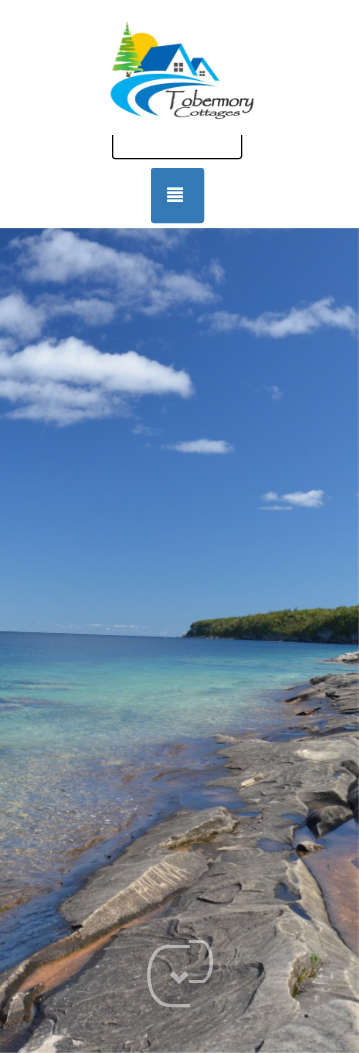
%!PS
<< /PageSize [359 1053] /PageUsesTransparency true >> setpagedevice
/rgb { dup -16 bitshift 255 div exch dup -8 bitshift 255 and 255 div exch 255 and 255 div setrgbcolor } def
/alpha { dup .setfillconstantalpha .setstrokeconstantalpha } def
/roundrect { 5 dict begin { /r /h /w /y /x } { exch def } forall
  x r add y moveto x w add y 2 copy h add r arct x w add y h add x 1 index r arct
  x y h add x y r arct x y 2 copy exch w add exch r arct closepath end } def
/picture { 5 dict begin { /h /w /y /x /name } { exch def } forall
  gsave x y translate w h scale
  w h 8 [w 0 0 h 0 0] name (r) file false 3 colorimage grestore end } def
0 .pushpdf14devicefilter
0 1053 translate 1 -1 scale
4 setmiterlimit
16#FFFFFF rgb
0 0 359 1053 rectfill
16#000000 rgb
112.5 104.5 129 54 2.5 roundrect stroke
(pic1.raw) 109 21 146 114 picture
16#337AB7 rgb
151.5 168.5 52 54 2.5 roundrect gsave fill grestore
stroke
(pic2.raw) 167 187 16 15 picture
(pic3.raw) 0 228 359 825 picture
0.5 alpha
16#FFFFFF rgb
168 945 moveto 190 945 lineto 190 1007 lineto 184 1007 170 1008 164 1006 curveto 140 999 142 945 168 945 curveto closepath 168 948 moveto 190 948 lineto 190 1004 lineto 184 1004 170 1005 165 1003 curveto 144 997 146 948 168 948 curveto closepath eofill
189 940 moveto 201 940 lineto 208 940 213 950 213 962 curveto 213 973 208 983 201 983 curveto 189 983 lineto closepath 189 943 moveto 203 943 lineto 212 947 212 976 203 980 curveto 189 980 lineto closepath eofill
188.5 975 moveto 179 984 lineto 170 975 lineto 173.5 971.5 lineto 179 977.5 lineto 185 971.5 lineto closepath fill
.poppdf14devicefilter showpage
